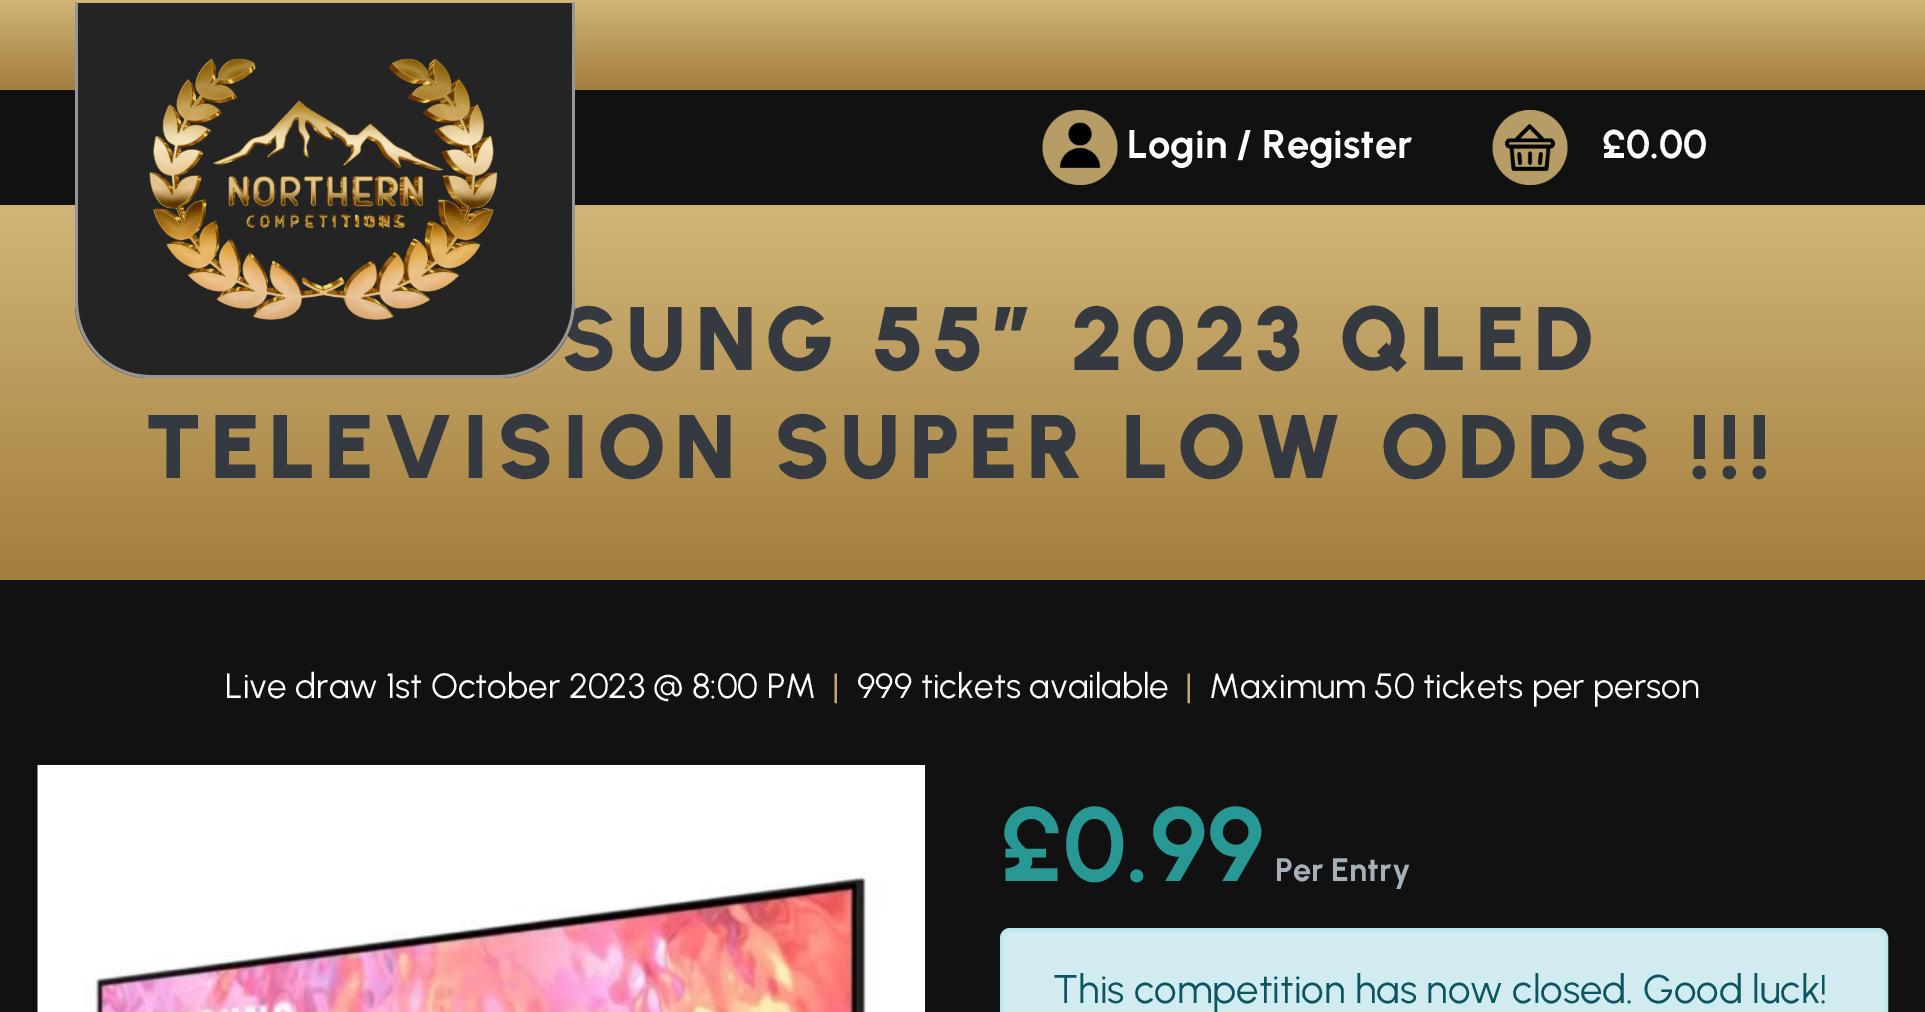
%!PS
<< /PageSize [1925 1012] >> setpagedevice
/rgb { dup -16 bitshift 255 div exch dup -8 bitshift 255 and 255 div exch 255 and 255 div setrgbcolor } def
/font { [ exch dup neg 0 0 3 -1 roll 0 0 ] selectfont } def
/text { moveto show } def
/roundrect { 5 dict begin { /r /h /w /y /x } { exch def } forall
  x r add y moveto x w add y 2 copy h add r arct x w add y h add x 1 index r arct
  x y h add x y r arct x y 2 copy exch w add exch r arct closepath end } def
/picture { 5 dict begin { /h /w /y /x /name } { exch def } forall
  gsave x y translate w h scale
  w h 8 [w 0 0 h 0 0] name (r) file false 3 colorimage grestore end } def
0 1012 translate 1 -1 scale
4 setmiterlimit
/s1 { /Urbanist-Bold 40 font 16#FFFFFF rgb } def
/s2 { /Urbanist-Regular 35 font 16#FFFFFF rgb } def
/s3 { /Urbanist-Regular 35 font 16#C6A76A rgb } def
/s4 { /Urbanist-Bold 105 font 16#289894 rgb } def
/s5 { /Urbanist-Bold 32.5 font 16#A5B0B8 rgb } def
/s6 { /Urbanist-Regular 40 font 16#0C5460 rgb } def
16#111111 rgb
0 0 1925 1012 rectfill
gsave 0 0 moveto 1925 0 lineto 1925 90 lineto 0 90 lineto closepath clip newpath
<< /ShadingType 2 /ColorSpace /DeviceRGB /Coords [963 90 963 0] /Extend [true true] /Function << /FunctionType 2 /Domain [0 1] /C0 [0.631 0.494 0.235] /C1 [0.824 0.71 0.478] /N 1 >> >> shfill grestore
gsave 0 205 moveto 1925 205 lineto 1925 580 lineto 0 580 lineto closepath clip newpath
<< /ShadingType 2 /ColorSpace /DeviceRGB /Coords [963 580 963 205] /Extend [true true] /Function << /FunctionType 2 /Domain [0 1] /C0 [0.631 0.494 0.235] /C1 [0.824 0.71 0.478] /N 1 >> >> shfill grestore
/Urbanist-Black 90 font
16#343A40 rgb
560 370 moveto 8 0 (SUNG 55″ 2023 QLED) ashow
16#242424 rgb
75 3 moveto 575 3 lineto 575 303 lineto 575 344.5 541.5 378 500 378 curveto 150 378 lineto 108.5 378 75 344.5 75 303 curveto closepath fill
16#969696 rgb
75 2 moveto 575 2 lineto 575 302 lineto 575 344 541 378 500 378 curveto 150 378 lineto 109 378 75 344 75 302 curveto closepath 78 2 moveto 572 2 lineto 572 302 lineto 572 343 540 375 500 375 curveto 150 375 lineto 110 375 78 343 78 302 curveto closepath eofill
(pic1.raw) 149 58 349 263 picture
(pic2.raw) 1042 110 76 75 picture
s1
(Login / Register) 1127 158 text
(pic3.raw) 1492 110 76 75 picture
(£0.00) 1602 158 text
/Urbanist-Black 90 font
16#343A40 rgb
145 478 moveto 8 0 (TELEVISION SUPER LOW ODDS !!!) ashow
s2
(Live draw 1st October 2023 @ 8:00 PM) 225 698 text
s3
(|) 832 698 text
s2
(999 tickets available) 857 698 text
s3
(|) 1185 698 text
s2
(Maximum 50 tickets per person) 1209 698 text
(pic4.raw) 37 765 888 247 picture
s4
(£0.99) 1000 881 text
s5
(Per Entry) 1275 881 text
16#D1ECF1 rgb
1001.5 929.5 885 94 8.5 roundrect gsave fill grestore
16#BEE5EB rgb
3 setlinewidth
stroke
s6
(This competition has now closed. Good luck!) 1053 1003 text
showpage
